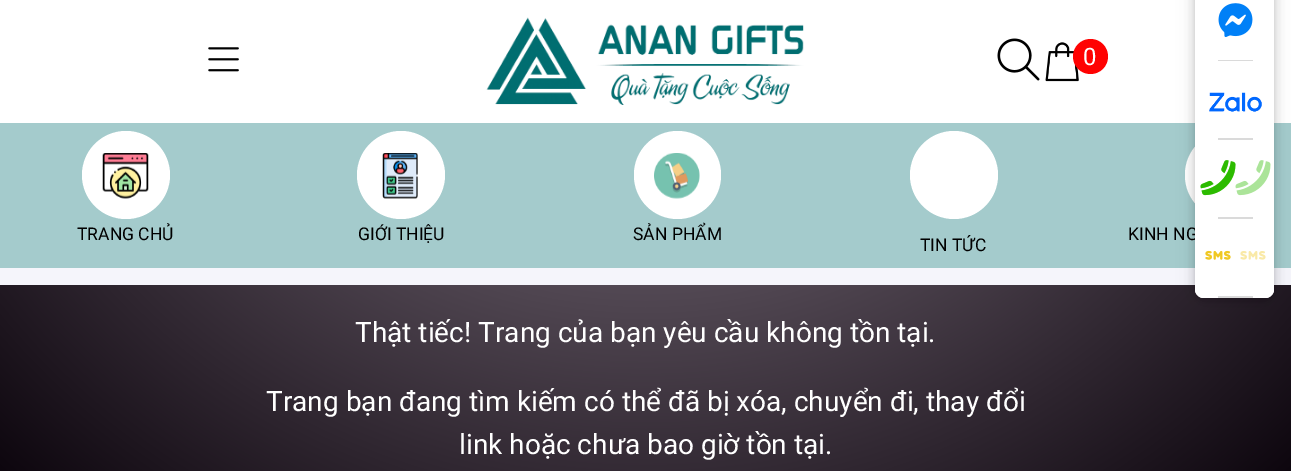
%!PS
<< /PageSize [1291 471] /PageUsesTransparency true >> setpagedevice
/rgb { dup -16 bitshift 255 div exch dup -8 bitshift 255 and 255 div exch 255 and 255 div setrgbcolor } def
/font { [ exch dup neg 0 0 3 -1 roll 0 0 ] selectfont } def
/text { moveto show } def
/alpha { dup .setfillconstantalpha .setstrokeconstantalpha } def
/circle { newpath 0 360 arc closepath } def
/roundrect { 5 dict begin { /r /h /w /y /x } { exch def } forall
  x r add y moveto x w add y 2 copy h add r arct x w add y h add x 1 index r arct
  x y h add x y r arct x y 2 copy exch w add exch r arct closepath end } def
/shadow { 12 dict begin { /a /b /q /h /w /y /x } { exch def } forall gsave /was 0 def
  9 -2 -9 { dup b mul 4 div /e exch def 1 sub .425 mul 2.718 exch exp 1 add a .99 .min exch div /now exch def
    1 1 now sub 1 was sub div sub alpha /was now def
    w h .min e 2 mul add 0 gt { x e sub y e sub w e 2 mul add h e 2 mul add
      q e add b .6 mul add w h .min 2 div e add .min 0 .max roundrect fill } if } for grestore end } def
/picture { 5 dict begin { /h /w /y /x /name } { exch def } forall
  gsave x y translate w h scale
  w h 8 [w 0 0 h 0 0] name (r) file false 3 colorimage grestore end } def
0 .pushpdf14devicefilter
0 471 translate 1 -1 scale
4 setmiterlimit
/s1 { /Roboto-Regular 24 font 16#FFFFFF rgb } def
/s2 { /Roboto-Regular 17.5 font 16#000000 rgb } def
/s3 { /Roboto-Regular 28 font 16#FFFFFF rgb } def
16#FFFFFF rgb
0 0 1291 471 rectfill
(pic1.raw) 208 47 31 25 picture
(pic2.raw) 486 17 318 88 picture
(pic3.raw) 997 38 43 43 picture
(pic4.raw) 1045 42 34 40 picture
16#FF0202 rgb
1090.5 56.5 17.5 circle fill
s1
(0) 1083 65 text
16#A4CBCC rgb
0 123 1291 145 rectfill
16#FFFFFF rgb
126 175 44 circle fill
(pic5.raw) 102 153 47 46 picture
s2
(TRANG CHỦ) 77 240 text
16#FFFFFF rgb
401 175 44 circle fill
(pic6.raw) 382 153 36 46 picture
s2
(GIỚI THIỆU) 358 240 text
16#FFFFFF rgb
634 131 87 88 43.5 roundrect fill
(pic7.raw) 654 153 46 46 picture
s2
(SẢN PHẨM) 633 240 text
16#FFFFFF rgb
954 175 44 circle fill
s2
(TIN TỨC) 920 251 text
16#FFFFFF rgb
1185 131 87 88 43.5 roundrect fill
s2
(KINH NG) 1128 240 text
gsave 0 285 moveto 1291 285 lineto 1291 471 lineto 0 471 lineto closepath clip newpath 646 -94 translate 913 802 scale
<< /ShadingType 3 /ColorSpace /DeviceRGB /Coords [0 0 0 0 0 1] /Extend [true true] /Function << /FunctionType 2 /Domain [0 1] /C0 [0.565 0.514 0.573] /C1 [0.051 0.024 0.055] /N 1 >> >> shfill grestore
16#F5F5FB rgb
0 268 1291 17 rectfill
16#000000 rgb
1195 -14 79 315 9 9 0.12 shadow
1195 -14 79 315 9 4.5 0.16 shadow
16#FFFFFF rgb
1195 -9 79 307 9 roundrect fill
(pic8.raw) 1218 3 35 34 picture
16#DADADA rgb
1218 60 35 1 rectfill
(pic9.raw) 1209 92 53 20 picture
1218 138 35 2 rectfill
(pic10.raw) 1200 160 36 36 picture
(pic11.raw) 1200 160 71 36 picture
1218 217 35 2 rectfill
16#FFFFFF rgb
1195 219 moveto 1274 219 lineto 1274 289 lineto 1274 294 1270 298 1265 298 curveto 1204 298 lineto 1199 298 1195 294 1195 289 curveto closepath fill
(pic12.raw) 1205 250 26 10 picture
(pic13.raw) 1205 251 61 9 picture
16#DADADA rgb
1218 296 35 2 rectfill
s3
(Thật tiếc! Trang của bạn yêu cầu không tồn tại.) 355 342 text
(Trang bạn đang tìm kiếm có thể đã bị xóa, chuyển đi, thay đổi) 266 411 text
(link hoặc chưa bao giờ tồn tại.) 459 454 text
.poppdf14devicefilter showpage
